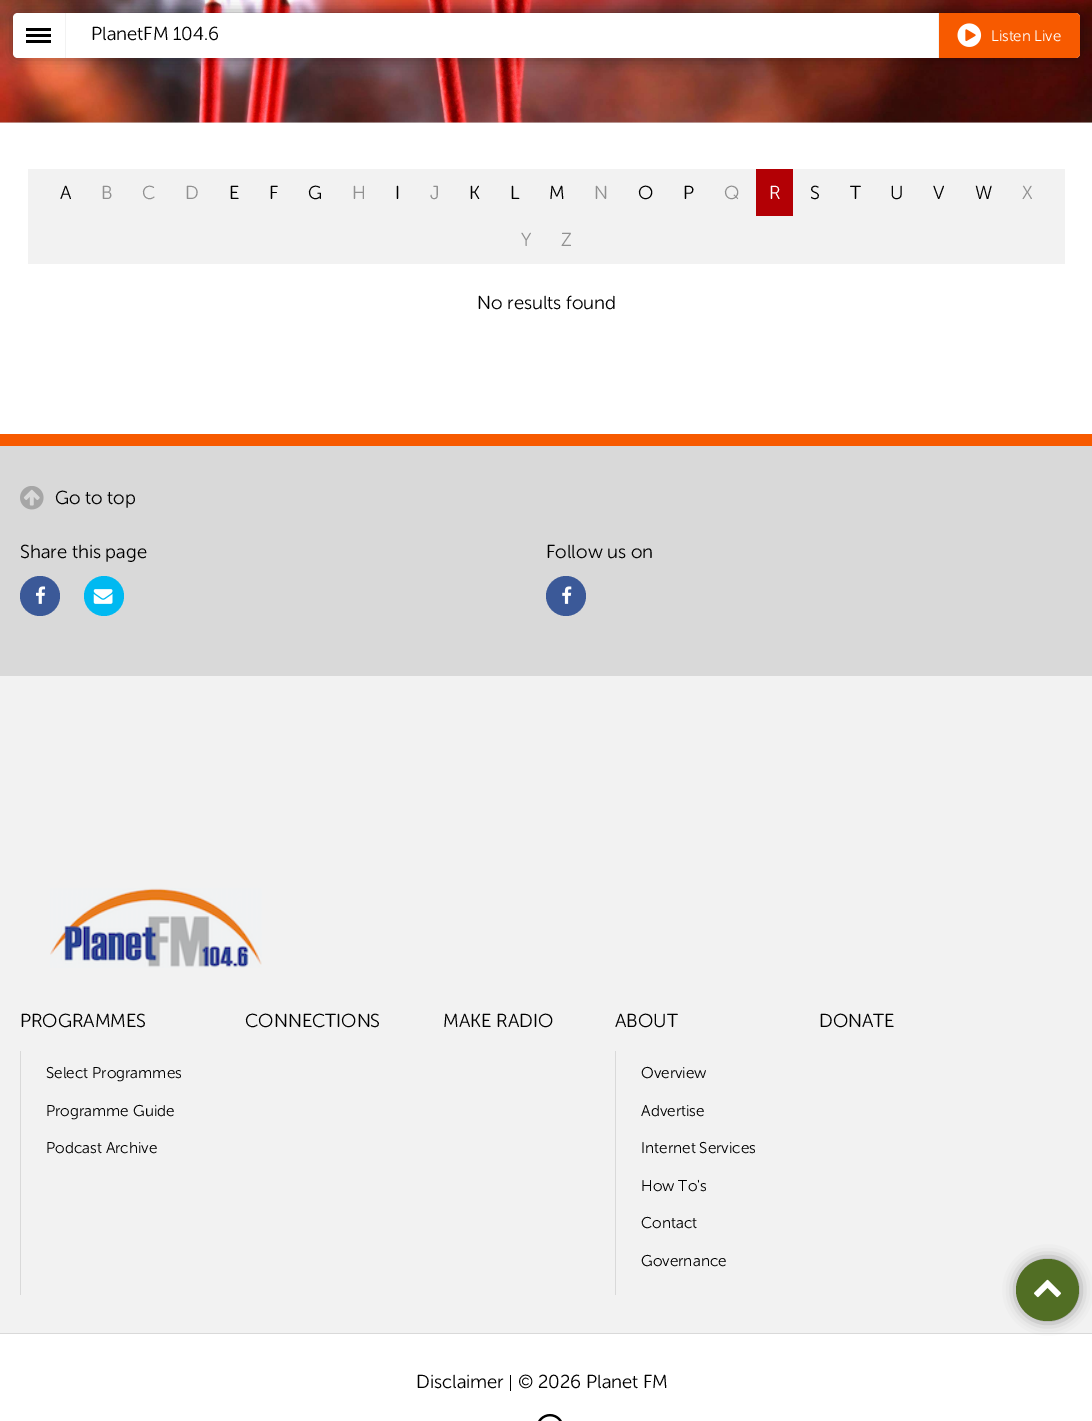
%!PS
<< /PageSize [1092 1421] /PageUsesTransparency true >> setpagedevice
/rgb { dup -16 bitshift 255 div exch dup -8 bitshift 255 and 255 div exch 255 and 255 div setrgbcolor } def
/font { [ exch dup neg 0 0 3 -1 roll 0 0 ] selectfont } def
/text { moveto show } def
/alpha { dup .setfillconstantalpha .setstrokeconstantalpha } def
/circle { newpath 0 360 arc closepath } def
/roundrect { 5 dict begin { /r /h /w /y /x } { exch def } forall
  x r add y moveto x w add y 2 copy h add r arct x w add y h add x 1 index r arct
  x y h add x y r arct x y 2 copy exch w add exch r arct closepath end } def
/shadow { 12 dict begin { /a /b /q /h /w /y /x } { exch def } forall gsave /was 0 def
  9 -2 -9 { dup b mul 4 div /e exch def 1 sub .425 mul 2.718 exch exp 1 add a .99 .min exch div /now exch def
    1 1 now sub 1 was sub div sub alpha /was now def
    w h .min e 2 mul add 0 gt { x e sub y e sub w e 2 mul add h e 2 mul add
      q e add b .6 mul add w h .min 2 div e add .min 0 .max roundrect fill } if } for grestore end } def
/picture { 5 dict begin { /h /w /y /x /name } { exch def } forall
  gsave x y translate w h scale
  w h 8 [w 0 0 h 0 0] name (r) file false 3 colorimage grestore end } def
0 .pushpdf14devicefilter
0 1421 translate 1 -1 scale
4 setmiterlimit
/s1 { /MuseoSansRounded-Light 18.75 font 16#000000 rgb } def
/s2 { /MuseoSansRounded-Light 15.25 font 16#FFFFFF rgb } def
/s3 { /MuseoSansRounded-Light 18.75 font 16#919191 rgb } def
/s4 { /MuseoSansRounded-Light 18.75 font 16#FFFFFF rgb } def
/s5 { /MuseoSansRounded-Light 15.6 font 16#000000 rgb } def
16#FFFFFF rgb
0 0 1092 1421 rectfill
16#E6E6E6 rgb
0 122 1092 1 rectfill
(pic1.raw) 0 0 1092 123 picture
16#000000 rgb
14 14 1065 42 4 7 0.5 shadow
16#FFFFFF rgb
18 13 moveto 65 13 lineto 65 58 lineto 18 58 lineto 15 58 13 56 13 53 curveto 13 18 lineto 13 15 15 13 18 13 curveto closepath fill
16#000000 rgb
26 34 25 3 rectfill
26 28 25 3 rectfill
26 40 25 3 rectfill
16#FFFFFF rgb
65 13 moveto 1075 13 lineto 1078 13 1080 15 1080 18 curveto 1080 53 lineto 1080 56 1078 58 1075 58 curveto 65 58 lineto closepath fill
16#F2F2F2 rgb
65 13 1 45 rectfill
s1
(PlanetFM 104.6) 91 40 text
16#F75A00 rgb
938 13 moveto 1075 13 lineto 1078 13 1080 15 1080 18 curveto 1080 53 lineto 1080 56 1078 58 1075 58 curveto 938 58 lineto closepath fill
16#F3F3F3 rgb
938 13 1 45 rectfill
(pic2.raw) 957 23 25 24 picture
s2
(Listen Live) 991 41 text
16#F2F2F2 rgb
28 169 1037 95 rectfill
s1
(A) 60 199 text
s3
(B) 101 199 text
(C) 142 199 text
(D) 185 199 text
s1
(E) 229 199 text
(F) 269 199 text
(G) 308 199 text
s3
(H) 352 199 text
s1
(I) 395 199 text
s3
(J) 430 199 text
s1
(K) 469 199 text
(L) 510 199 text
(M) 549 199 text
s3
(N) 594 199 text
s1
(O) 638 199 text
(P) 683 199 text
s3
(Q) 724 199 text
16#B30005 rgb
756 169 37 47 rectfill
s4
(R) 769 199 text
s1
(S) 810 199 text
(T) 850 199 text
(U) 890 199 text
(V) 933 199 text
(W) 975 199 text
s3
(X) 1022 199 text
(Y) 521 246 text
(Z) 561 246 text
s1
(No results found) 477 309 text
16#D9D9D9 rgb
0 446 1092 230 rectfill
16#F75A00 rgb
0 434 1092 12 rectfill
(pic3.raw) 20 486 24 24 picture
s1
(Go to top) 55 504 text
(Share this page) 20 558 text
16#3B5998 rgb
40 596 20 circle fill
(pic4.raw) 36 586 10 18 picture
16#00B9F1 rgb
104 596 20 circle fill
(pic5.raw) 93 589 20 15 picture
s1
(Follow us on) 546 558 text
16#3B5998 rgb
566 596 20 circle fill
(pic6.raw) 562 586 10 18 picture
16#F2F2F2 rgb
0 676 1092 657 rectfill
16#D9D9D9 rgb
0 1333 1092 1 rectfill
(pic7.raw) 50 888 212 80 picture
s1
(PROGRAMMES) 20 1027 text
16#D9D9D9 rgb
20 1051 1 244 rectfill
s5
(Select Programmes) 46 1078 text
(Programme Guide) 46 1116 text
(Podcast Archive) 46 1153 text
s1
(CONNECTIONS) 245 1027 text
(MAKE RADIO) 443 1027 text
(ABOUT) 615 1027 text
16#D9D9D9 rgb
615 1051 1 244 rectfill
s5
(Overview) 641 1078 text
(Advertise) 641 1116 text
(Internet Services) 641 1153 text
(How To's) 641 1191 text
(Contact) 641 1228 text
(Governance) 641 1266 text
s1
(DONATE) 819 1027 text
510 1375 1 16 rectfill
(Disclaimer) 416 1388 text
(© 2026 Planet FM) 518 1388 text
(pic8.raw) 538 1413 24 8 picture
1018 1260 60 60 30 7 0.5 shadow
16#516E24 rgb
1016 1259 63 62 31 roundrect fill
(pic9.raw) 1034 1279 27 19 picture
.poppdf14devicefilter showpage
